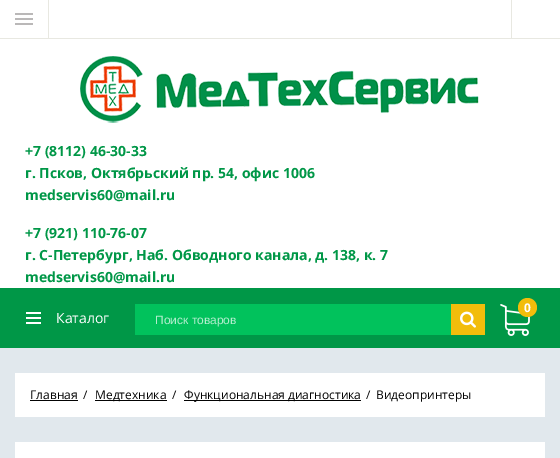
%!PS
<< /PageSize [560 458] >> setpagedevice
/rgb { dup -16 bitshift 255 div exch dup -8 bitshift 255 and 255 div exch 255 and 255 div setrgbcolor } def
/font { [ exch dup neg 0 0 3 -1 roll 0 0 ] selectfont } def
/text { moveto show } def
/circle { newpath 0 360 arc closepath } def
/picture { 5 dict begin { /h /w /y /x /name } { exch def } forall
  gsave x y translate w h scale
  w h 8 [w 0 0 h 0 0] name (r) file false 3 colorimage grestore end } def
0 458 translate 1 -1 scale
4 setmiterlimit
/s1 { /OpenSans-Bold 14 font 16#009747 rgb } def
/s2 { /OpenSans-Bold 12 font 16#FFFFFF rgb } def
/s3 { /OpenSans-Regular 14 font 16#FFFFFF rgb } def
/s4 { /LiberationSans-Regular 12 font 16#B3EDCE rgb } def
/s5 { /OpenSans-Regular 12 font 16#030303 rgb } def
16#E1E8ED rgb
0 0 560 458 rectfill
16#FFFFFF rgb
0 0 560 288 rectfill
16#E8E8E1 rgb
0 38 560 1 rectfill
48 0 1 38 rectfill
(pic1.raw) 15 13 18 12 picture
511 0 1 38 rectfill
(pic2.raw) 80 56 399 67 picture
s1
(+7 \(8112\) 46-30-33) 25 156 text
(г. Псков, Октябрьский пр. 54, офис 1006) 25 178 text
(medservis60@mail.ru) 25 200 text
(+7 \(921\) 110-76-07) 25 238 text
(г. С-Петербург, Наб. Обводного канала, д. 138, к. 7) 25 260 text
(medservis60@mail.ru) 25 282 text
0 288 560 60 rectfill
(pic3.raw) 500 304 30 32 picture
16#F2BD0B rgb
527.5 307.5 9.5 circle fill
s2
(0) 524 312 text
26 312 15 2 rectfill
s3
(Каталог) 56 323 text
26 317 15 2 rectfill
26 322 15 2 rectfill
16#01C25C rgb
135 304 316 31 rectfill
s4
(Поиск товаров) 155 324 text
16#F2BD0B rgb
451 304 34 31 rectfill
(pic4.raw) 460 311 16 17 picture
16#FFFFFF rgb
15 373 530 44 rectfill
s5
(Главная) 30 399 text
30 400 48 1 rectfill
(/) 83 399 text
95 400 72 1 rectfill
(Медтехника) 95 399 text
(/) 172 399 text
184 400 177 1 rectfill
(Функциональная диагностика) 184 399 text
(/) 366 399 text
(Видеопринтеры) 376 399 text
16#FFFFFF rgb
15 442 530 16 rectfill
showpage
